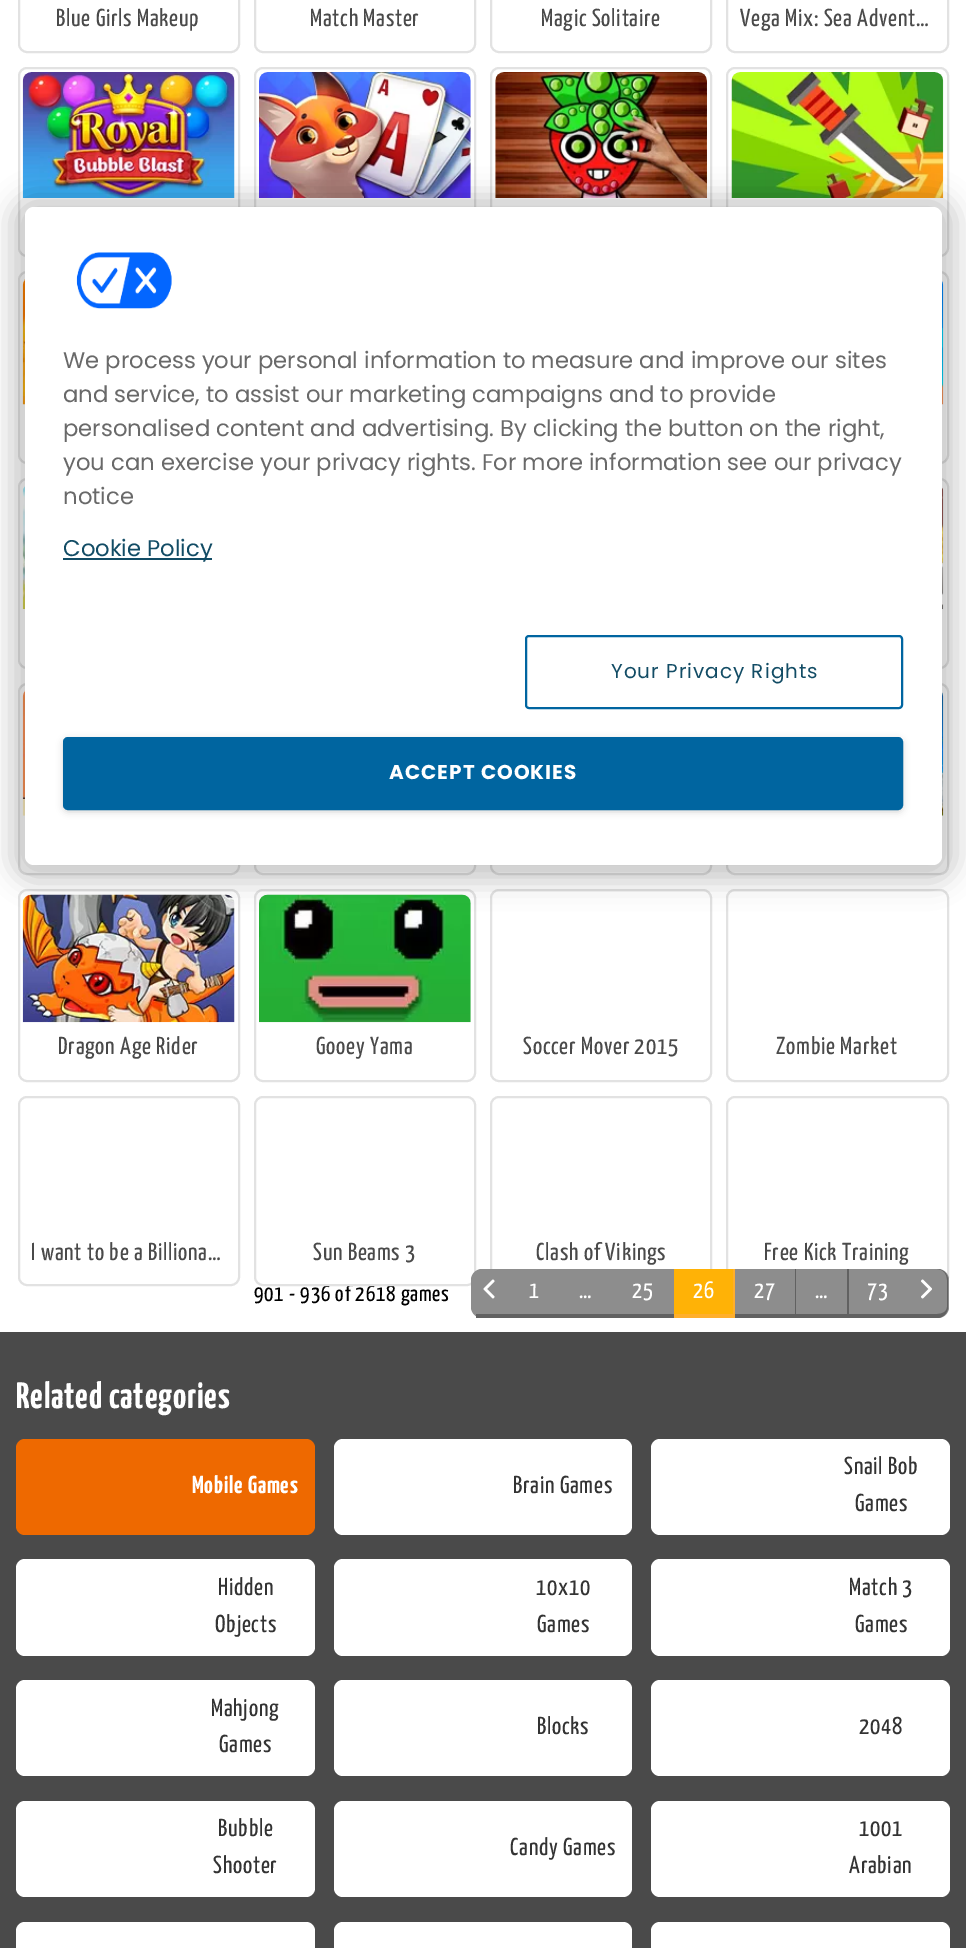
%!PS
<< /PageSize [966 1948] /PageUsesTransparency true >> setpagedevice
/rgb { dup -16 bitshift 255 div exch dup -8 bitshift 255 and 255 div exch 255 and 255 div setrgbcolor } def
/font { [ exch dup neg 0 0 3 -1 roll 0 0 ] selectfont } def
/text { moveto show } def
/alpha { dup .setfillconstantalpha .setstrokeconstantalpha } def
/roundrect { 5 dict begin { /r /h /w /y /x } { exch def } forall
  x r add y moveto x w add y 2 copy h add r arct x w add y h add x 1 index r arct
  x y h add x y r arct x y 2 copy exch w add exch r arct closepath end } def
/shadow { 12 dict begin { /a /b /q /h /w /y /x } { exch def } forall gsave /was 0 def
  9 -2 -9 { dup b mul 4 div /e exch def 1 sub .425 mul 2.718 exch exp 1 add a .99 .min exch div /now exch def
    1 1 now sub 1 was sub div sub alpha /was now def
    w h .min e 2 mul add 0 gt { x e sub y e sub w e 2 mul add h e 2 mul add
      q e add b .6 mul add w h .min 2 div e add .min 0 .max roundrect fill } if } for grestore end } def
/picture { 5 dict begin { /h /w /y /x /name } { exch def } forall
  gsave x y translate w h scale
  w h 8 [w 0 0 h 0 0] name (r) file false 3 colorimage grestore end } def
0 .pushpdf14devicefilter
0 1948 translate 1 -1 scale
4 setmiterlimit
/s1 { /Poppins-Regular 22.75 font 16#696969 rgb } def
/s2 { /Poppins-Regular 22.75 font 16#124C65 rgb } def
16#FFFFFF rgb
0 0 966 1948 rectfill
16#E2E2E2 rgb
2 setlinewidth
19 -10 220 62 8 roundrect stroke
/YanoneKaffeesatz-Regular 24.5 font
16#4A4A4A rgb
56 26 moveto 0.8 0 (Blue Girls Makeup) ashow
16#E2E2E2 rgb
255 -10 220 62 8 roundrect stroke
16#4A4A4A rgb
310 26 moveto 0.8 0 (Match Master) ashow
16#E2E2E2 rgb
491 -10 220 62 8 roundrect stroke
16#4A4A4A rgb
541 26 moveto 0.8 0 (Magic Solitaire) ashow
16#E2E2E2 rgb
727 -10 221 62 8 roundrect stroke
16#4A4A4A rgb
740 26 moveto 0.8 0 (Vega Mix: Sea Advent…) ashow
16#E2E2E2 rgb
19 68 220 188 8 roundrect stroke
(pic1.raw) 22 72 213 126 picture
255 68 220 188 8 roundrect stroke
(pic2.raw) 259 72 212 126 picture
491 68 220 188 8 roundrect stroke
(pic3.raw) 495 72 212 126 picture
727 68 221 188 8 roundrect stroke
(pic4.raw) 731 72 213 126 picture
19 272 220 191 8 roundrect stroke
(pic5.raw) 22 279 3 126 picture
727 272 221 191 8 roundrect stroke
(pic6.raw) 942 281 2 124 picture
19 479 220 189 8 roundrect stroke
(pic7.raw) 22 486 3 124 picture
727 479 221 189 8 roundrect stroke
(pic8.raw) 942 487 2 123 picture
19 684 220 190 8 roundrect stroke
(pic9.raw) 22 690 3 126 picture
255 684 220 190 8 roundrect stroke
491 684 220 190 8 roundrect stroke
727 684 221 190 8 roundrect stroke
(pic10.raw) 942 692 2 124 picture
19 890 220 191 8 roundrect stroke
(pic11.raw) 22 894 213 129 picture
16#4A4A4A rgb
58 1054 moveto 0.8 0 (Dragon Age Rider) ashow
16#E2E2E2 rgb
255 890 220 191 8 roundrect stroke
(pic12.raw) 259 894 212 129 picture
16#4A4A4A rgb
316 1054 moveto 0.8 0 (Gooey Yama) ashow
16#E2E2E2 rgb
491 890 220 191 8 roundrect stroke
16#4A4A4A rgb
523 1054 moveto 0.8 0 (Soccer Mover 2015) ashow
16#E2E2E2 rgb
727 890 221 191 8 roundrect stroke
16#4A4A4A rgb
776 1054 moveto 0.8 0 (Zombie Market) ashow
16#E2E2E2 rgb
19 1097 220 188 8 roundrect stroke
16#4A4A4A rgb
31 1260 moveto 0.8 0 (I want to be a Billiona…) ashow
/YanoneKaffeesatz-Regular 22.5 font
16#000000 rgb
254 1301 moveto 0.8 0 (901 - 936 of 2618 games) ashow
16#FFFFFF rgb
255 1097 220 188 8 roundrect gsave fill grestore
16#E2E2E2 rgb
stroke
/YanoneKaffeesatz-Regular 24.5 font
16#4A4A4A rgb
313 1260 moveto 0.8 0 (Sun Beams 3) ashow
16#E2E2E2 rgb
491 1097 220 188 8 roundrect stroke
16#4A4A4A rgb
536 1260 moveto 0.8 0 (Clash of Vikings) ashow
16#E2E2E2 rgb
727 1097 221 188 8 roundrect stroke
16#4A4A4A rgb
764 1260 moveto 0.8 0 (Free Kick Training) ashow
16#8D8D8D rgb
482 1269 moveto 511 1269 lineto 511 1318 lineto 482 1318 lineto 476 1318 471 1313 471 1307 curveto 471 1280 lineto 471 1274 476 1269 482 1269 curveto closepath fill
16#616161 rgb
476 1314 200 4 rectfill
(pic13.raw) 483 1279 12 20 picture
16#FFB206 rgb
674 1269 59 45 rectfill
16#FFAF2C rgb
733 1269 2 49 rectfill
674 1314 61 4 rectfill
/YanoneKaffeesatz-Regular 24 font
16#FFFFFF rgb
693 1298 moveto 0.8 0 (26) ashow
16#616161 rgb
847 1269 2 49 rectfill
796 1314 114 4 rectfill
16#8D8D8D rgb
908 1269 moveto 938 1269 lineto 944 1269 949 1274 949 1280 curveto 949 1307 lineto 949 1313 944 1318 938 1318 curveto 908 1318 lineto closepath fill
16#616161 rgb
908 1269 moveto 937 1269 lineto 943 1269 948 1274 948 1280 curveto 948 1307 lineto 948 1313 943 1318 937 1318 curveto 908 1318 lineto closepath 908 1269 moveto 937 1269 lineto 943 1269 947 1274 947 1280 curveto 947 1307 lineto 947 1311 943 1314 937 1314 curveto 908 1314 lineto closepath eofill
(pic14.raw) 921 1279 11 20 picture
16#8D8D8D rgb
511 1269 163 45 rectfill
16#FFFFFF rgb
529 1298 moveto 0.8 0 (1) ashow
579 1298 moveto 0.8 0 (…) ashow
632 1298 moveto 0.8 0 (25) ashow
16#8D8D8D rgb
735 1269 60 45 rectfill
16#616161 rgb
795 1269 1 49 rectfill
735 1314 61 4 rectfill
16#FFFFFF rgb
754 1298 moveto 0.8 0 (27) ashow
16#8D8D8D rgb
796 1269 51 45 rectfill
16#FFFFFF rgb
815 1298 moveto 0.8 0 (…) ashow
16#8D8D8D rgb
849 1269 59 45 rectfill
16#FFFFFF rgb
867 1298 moveto 0.8 0 (73) ashow
16#4A4A4A rgb
0 1332 966 616 rectfill
/YanoneKaffeesatz-Bold 36.75 font
16#FFFFFF rgb
16 1408 moveto 0.8 0 (Related categories) ashow
16#EE6900 rgb
16 1439 299 96 9 roundrect fill
/YanoneKaffeesatz-Bold 24.5 font
16#FFFFFF rgb
192 1493 moveto 0.8 0 (Mobile Games) ashow
334 1439 298 96 9 roundrect fill
/YanoneKaffeesatz-Regular 24.5 font
16#333333 rgb
513 1493 moveto 0.8 0 (Brain Games) ashow
16#FFFFFF rgb
651 1439 299 96 9 roundrect fill
16#333333 rgb
844 1474 moveto 0.8 0 (Snail Bob) ashow
855 1511 moveto 0.8 0 (Games) ashow
16#FFFFFF rgb
16 1559 299 97 9 roundrect fill
16#333333 rgb
218 1595 moveto 0.8 0 (Hidden) ashow
215 1632 moveto 0.8 0 (Objects) ashow
16#FFFFFF rgb
334 1559 298 97 9 roundrect fill
16#333333 rgb
536 1595 moveto 0.8 0 (10x10) ashow
537 1632 moveto 0.8 0 (Games) ashow
16#FFFFFF rgb
651 1559 299 97 9 roundrect fill
16#333333 rgb
849 1595 moveto 0.8 0 (Match 3) ashow
855 1632 moveto 0.8 0 (Games) ashow
16#FFFFFF rgb
16 1680 299 96 9 roundrect fill
16#333333 rgb
211 1716 moveto 0.8 0 (Mahjong) ashow
219 1752 moveto 0.8 0 (Games) ashow
16#FFFFFF rgb
334 1680 298 96 9 roundrect fill
16#333333 rgb
537 1734 moveto 0.8 0 (Blocks) ashow
16#FFFFFF rgb
651 1680 299 96 9 roundrect fill
16#333333 rgb
859 1734 moveto 0.8 0 (2048) ashow
16#FFFFFF rgb
16 1801 299 96 9 roundrect fill
16#333333 rgb
218 1836 moveto 0.8 0 (Bubble) ashow
213 1873 moveto 0.8 0 (Shooter) ashow
16#FFFFFF rgb
334 1801 298 96 9 roundrect fill
16#333333 rgb
510 1855 moveto 0.8 0 (Candy Games) ashow
16#FFFFFF rgb
651 1801 299 96 9 roundrect fill
16#333333 rgb
859 1836 moveto 0.8 0 (1001) ashow
849 1873 moveto 0.8 0 (Arabian) ashow
16#FFFFFF rgb
16 1922 299 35 9 roundrect fill
334 1922 298 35 9 roundrect fill
651 1922 299 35 9 roundrect fill
16#000000 rgb
11 196 945 686 23 13 0.2 shadow
16#FFFFFF rgb
25 207 917 658 9 roundrect fill
(pic15.raw) 76 252 96 57 picture
s1
(We process your personal information to measure and improve our sites) 63 368 text
(and service, to assist our marketing campaigns and to provide) 63 402 text
(personalised content and advertising. By clicking the button on the right,) 63 436 text
(you can exercise your privacy rights. For more information see our privacy) 63 470 text
(notice) 63 504 text
16#124C65 rgb
63 558 149 2 rectfill
(Cookie Policy) 63 556 text
16#0065A0 rgb
526 636 376 72 3 roundrect stroke
/Poppins-Regular 20 font
16#124C65 rgb
611 678 moveto 1 0 (Your Privacy Rights) ashow
16#000000 rgb
63 739 840 73 5 3.5 0.16 shadow
16#0065A0 rgb
64 738 838 71 4 roundrect gsave fill grestore
stroke
/Poppins-Bold 20 font
16#FFFFFF rgb
389 779 moveto 1 0 (ACCEPT COOKIES) ashow
.poppdf14devicefilter showpage
